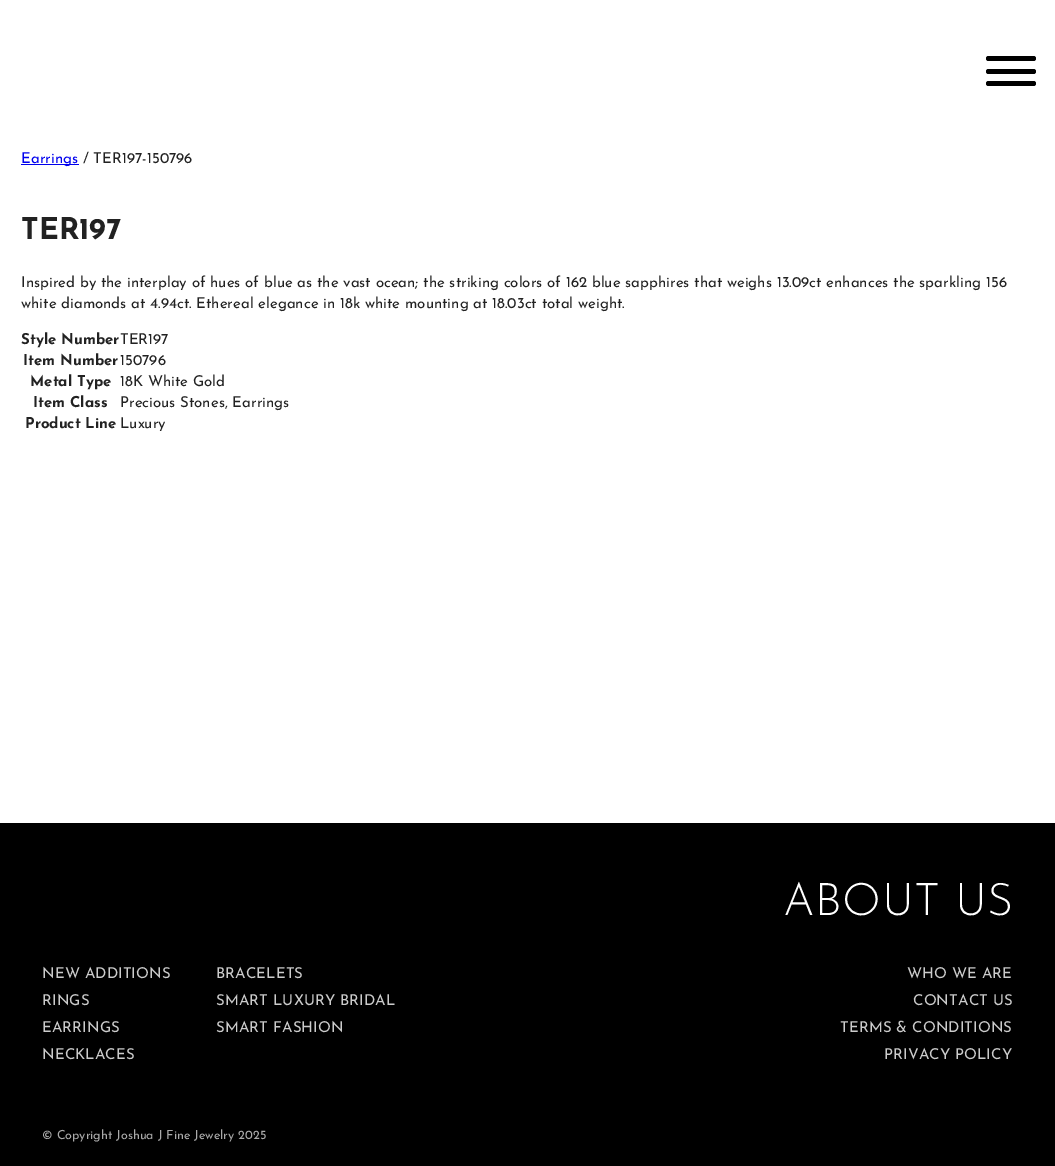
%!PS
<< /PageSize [1055 1166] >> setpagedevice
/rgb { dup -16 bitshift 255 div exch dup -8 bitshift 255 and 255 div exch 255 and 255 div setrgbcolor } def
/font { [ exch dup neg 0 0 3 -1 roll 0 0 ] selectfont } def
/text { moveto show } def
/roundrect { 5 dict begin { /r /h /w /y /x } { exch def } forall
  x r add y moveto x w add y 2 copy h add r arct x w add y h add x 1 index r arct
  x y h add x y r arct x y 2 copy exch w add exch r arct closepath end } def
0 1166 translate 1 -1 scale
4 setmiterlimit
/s1 { /JosefinSans-Regular 15 font 16#0000EE rgb } def
/s2 { /JosefinSans-Regular 15 font 16#222222 rgb } def
/s3 { /JosefinSans-Bold 30 font 16#222222 rgb } def
/s4 { /JosefinSans-Bold 15 font 16#222222 rgb } def
/s5 { /JosefinSans-Regular 12.5 font 16#AAAAAA rgb } def
16#FFFFFF rgb
0 0 1055 1166 rectfill
16#000000 rgb
986 69 50 5 2.5 roundrect fill
986 56 50 5 2.5 roundrect fill
986 81 50 5 2.5 roundrect fill
16#0000EE rgb
21 164 58 1 rectfill
s1
(Earrings) 21 163 text
s2
(/ TER197-150796) 83 163 text
s3
(TER197) 21 239 text
s2
(Inspired by the interplay of hues of blue as the vast ocean; the striking colors of 162 blue sapphires that weighs 13.09ct enhances the sparkling 156) 21 287 text
(white diamonds at 4.94ct. Ethereal elegance in 18k white mounting at 18.03ct total weight.) 21 308 text
s4
(Style Number) 21 344 text
s2
(TER197) 120 344 text
s4
(Item Number) 23 365 text
s2
(150796) 120 365 text
s4
(Metal Type) 30 386 text
s2
(18K White Gold) 120 386 text
s4
(Item Class) 33 407 text
s2
(Precious Stones, Earrings) 120 407 text
s4
(Product Line) 25 428 text
s2
(Luxury) 120 428 text
16#000000 rgb
0 823 1055 343 rectfill
16#CCCCCC rgb
42 978 moveto 0.1 0 (NEW ADDITIONS) ashow
216 978 moveto 0.1 0 (BRACELETS) ashow
42 1005 moveto 0.1 0 (RINGS) ashow
216 1005 moveto 0.1 0 (SMART LUXURY BRIDAL) ashow
42 1032 moveto 0.1 0 (EARRINGS) ashow
216 1032 moveto 0.1 0 (SMART FASHION) ashow
42 1059 moveto 0.1 0 (NECKLACES) ashow
/JosefinSans-Light 45 font
16#FFFFFF rgb
783 915 moveto 0.5 0 (ABOUT US) ashow
/JosefinSans-Regular 15 font
16#CCCCCC rgb
907 978 moveto 0.1 0 (WHO WE ARE) ashow
913 1005 moveto 0.1 0 (CONTACT US) ashow
840 1032 moveto 0.1 0 (TERMS & CONDITIONS) ashow
884 1059 moveto 0.1 0 (PRIVACY POLICY) ashow
s5
(© Copyright Joshua J Fine Jewelry 2025) 42 1139 text
showpage
